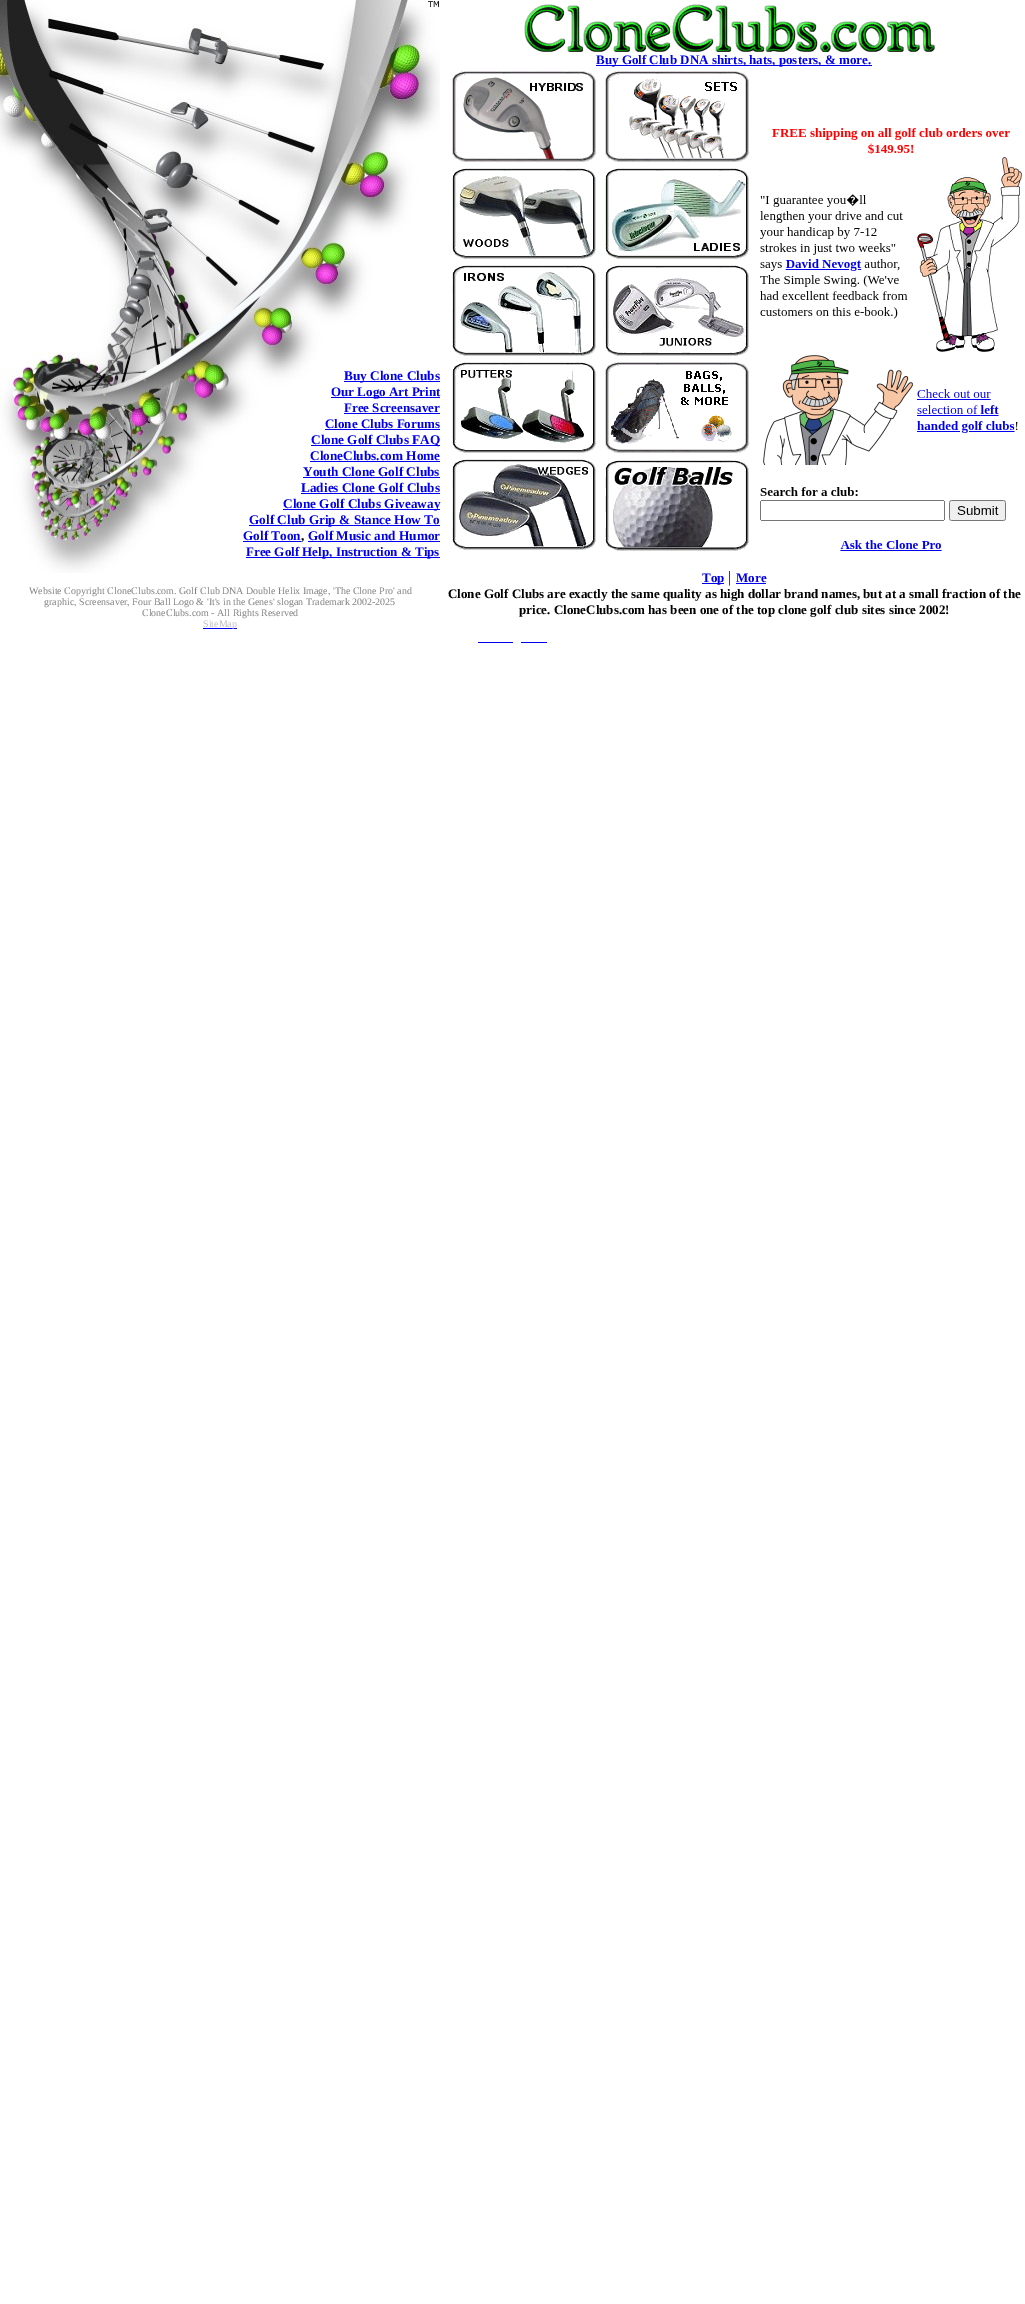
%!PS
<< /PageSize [1025 2304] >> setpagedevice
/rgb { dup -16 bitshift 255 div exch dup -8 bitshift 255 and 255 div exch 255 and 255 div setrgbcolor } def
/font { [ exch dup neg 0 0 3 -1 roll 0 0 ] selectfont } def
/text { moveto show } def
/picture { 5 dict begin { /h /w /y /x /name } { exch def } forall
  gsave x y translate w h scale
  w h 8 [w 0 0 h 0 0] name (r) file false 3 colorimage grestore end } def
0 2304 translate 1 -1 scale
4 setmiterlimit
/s1 { /LiberationSerif-Bold 13.25 font 16#0000EE rgb } def
/s2 { /LiberationSerif-Bold 13 font 16#0000EE rgb } def
/s3 { /LiberationSerif-Bold 13.25 font 16#000000 rgb } def
/s4 { /LiberationSerif-Regular 10 font 16#808080 rgb } def
/s5 { /LiberationSerif-Regular 10 font 16#C0C0C0 rgb } def
/s6 { /LiberationSerif-Regular 16 font 16#000000 rgb } def
/s7 { /LiberationSerif-Bold 13 font 16#000000 rgb } def
16#FFFFFF rgb
0 0 1025 2304 rectfill
(pic1.raw) 0 0 440 573 picture
16#0000EE rgb
344 381 96 1 rectfill
s1
(Buy Clone Clubs) 344 380 text
331 397 109 1 rectfill
s2
(Our Logo Art Print) 331 396 text
(Free Screensaver) 344 412 text
344 413 96 1 rectfill
(Clone Clubs Forums) 325 428 text
325 429 115 1 rectfill
311 445 129 1 rectfill
s1
(Clone Golf Clubs FAQ) 311 444 text
(CloneClubs.com Home) 310 460 text
310 461 130 1 rectfill
(Youth Clone Golf Clubs) 303 476 text
303 477 137 1 rectfill
(Ladies Clone Golf Clubs) 301 492 text
301 493 139 1 rectfill
283 509 157 1 rectfill
(Clone Golf Clubs Giveaway) 283 508 text
249 525 191 1 rectfill
(Golf Club Grip & Stance How To) 249 524 text
(Golf Toon) 243 540 text
243 541 58 1 rectfill
s3
(,) 301 540 text
s1
(Golf Music and Humor) 308 540 text
308 541 132 1 rectfill
246 557 194 1 rectfill
s2
(Free Golf Help, Instruction & Tips) 246 556 text
s4
(Website Copyright CloneClubs.com. Golf Club DNA Double Helix Image, 'The Clone Pro' and) 29 594 text
(graphic, Screensaver, Four Ball Logo & 'It's in the Genes' slogan Trademark 2002-2025) 44 605 text
(CloneClubs.com - All Rights Reserved) 142 616 text
16#0000EE rgb
203 628 34 1 rectfill
s5
(SiteMap) 203 627 text
(pic2.raw) 524 4 411 48 picture
16#0000EE rgb
596 65 276 1 rectfill
s2
(Buy Golf Club DNA shirts, hats, posters, & more.) 596 64 text
(pic3.raw) 452 71 570 480 picture
702 583 22 1 rectfill
(Top) 702 582 text
s6
(|) 728 582 text
s2
(More) 736 582 text
736 583 30 1 rectfill
s7
(Clone Golf Clubs are exactly the same quality as high dollar brand names, but at a small fraction of the) 448 598 text
(price. CloneClubs.com has been one of the top clone golf club sites since 2002!) 519 614 text
16#0000EE rgb
478 642 35 1 rectfill
521 642 26 1 rectfill
showpage
